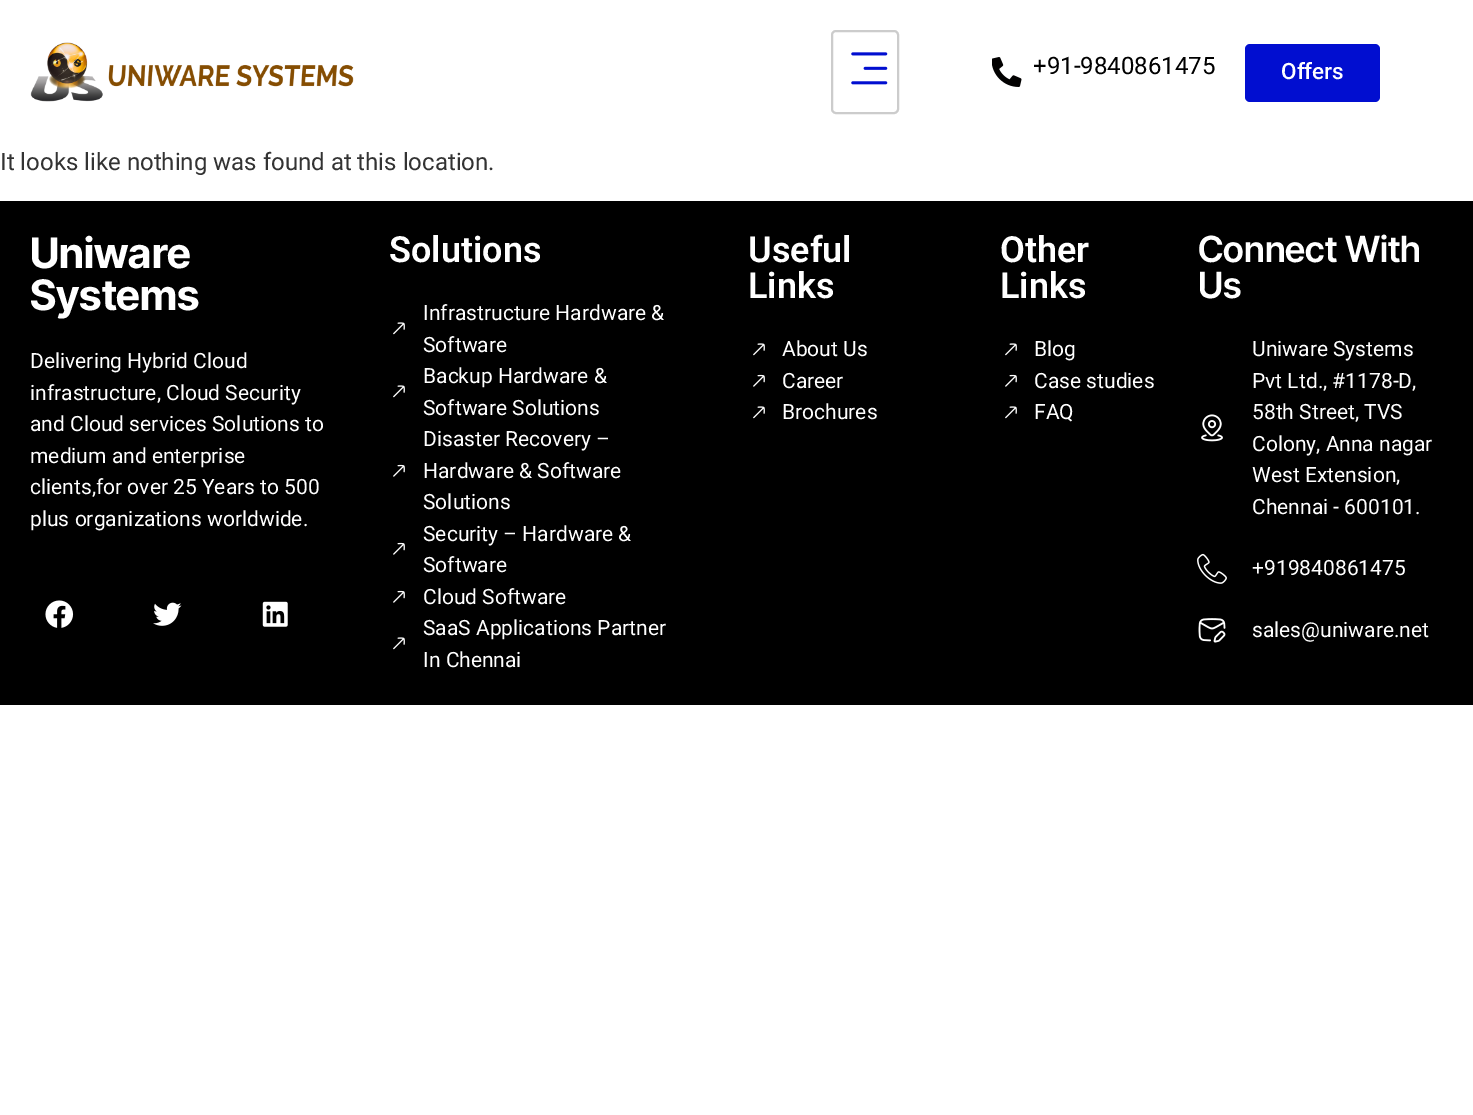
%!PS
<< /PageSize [1473 1115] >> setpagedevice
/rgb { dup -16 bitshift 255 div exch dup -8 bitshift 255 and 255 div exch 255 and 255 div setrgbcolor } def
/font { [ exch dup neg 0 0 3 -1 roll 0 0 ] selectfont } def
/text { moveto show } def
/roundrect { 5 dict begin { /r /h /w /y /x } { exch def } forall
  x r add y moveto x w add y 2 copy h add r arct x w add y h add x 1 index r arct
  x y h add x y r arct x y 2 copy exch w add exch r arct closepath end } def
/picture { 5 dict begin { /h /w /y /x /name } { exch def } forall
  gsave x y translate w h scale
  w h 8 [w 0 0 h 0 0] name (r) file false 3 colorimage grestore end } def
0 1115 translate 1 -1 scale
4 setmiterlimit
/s1 { /Roboto-Regular 24 font 16#000000 rgb } def
/s2 { /Roboto-Medium 22.5 font 16#FFFFFF rgb } def
/s3 { /Roboto-Regular 24 font 16#333333 rgb } def
/s4 { /InterTight-Bold 42 font 16#FFFFFF rgb } def
/s5 { /Roboto-Regular 21 font 16#FFFFFF rgb } def
/s6 { /Roboto-SemiBold 36 font 16#FFFFFF rgb } def
/s7 { /InterTight-SemiBold 36 font 16#FFFFFF rgb } def
16#FFFFFF rgb
0 0 1473 1115 rectfill
(pic1.raw) 30 42 324 60 picture
16#CCCCCC rgb
2 setlinewidth
832 31 66 82 4 roundrect stroke
(pic2.raw) 851 52 37 33 picture
(pic3.raw) 992 57 30 30 picture
s1
(+91-9840861475) 1033 74 text
16#010ED0 rgb
1245 44 135 58 5 roundrect fill
s2
(Offers) 1281 79 text
s3
(It looks like nothing was found at this location.) 0 170 text
16#000000 rgb
0 201 1473 504 rectfill
s4
(Uniware) 30 268 text
(Systems) 30 310 text
s5
(Delivering Hybrid Cloud) 30 368 text
(infrastructure, Cloud Security) 30 400 text
(and Cloud services Solutions to) 30 431 text
(medium and enterprise) 30 463 text
(clients,for over 25 Years to 500) 30 494 text
(plus organizations worldwide.) 30 526 text
(pic4.raw) 45 600 29 28 picture
(pic5.raw) 153 602 29 24 picture
(pic6.raw) 262 601 26 26 picture
s6
(Solutions) 389 262 text
(pic7.raw) 393 322 12 13 picture
s5
(Infrastructure Hardware &) 423 320 text
(Software) 423 352 text
(pic7.raw) 393 385 12 13 picture
(Backup Hardware &) 423 383 text
(Software Solutions) 423 415 text
(pic8.raw) 393 464 12 13 picture
(Disaster Recovery –) 423 446 text
(Hardware & Software) 423 478 text
(Solutions) 423 509 text
(pic8.raw) 393 542 12 13 picture
(Security – Hardware &) 423 541 text
(Software) 423 572 text
(pic8.raw) 393 590 12 13 picture
(Cloud Software) 423 604 text
(pic7.raw) 393 637 12 13 picture
(SaaS Applications Partner) 423 635 text
(In Chennai) 423 667 text
s6
(Useful) 748 262 text
(Links) 748 298 text
(pic7.raw) 753 343 12 13 picture
s5
(About Us) 782 356 text
(pic8.raw) 753 374 12 13 picture
(Career) 782 388 text
(pic7.raw) 753 406 12 13 picture
(Brochures) 782 419 text
s6
(Other) 1000 262 text
(Links) 1000 298 text
(pic7.raw) 1005 343 12 13 picture
s5
(Blog) 1034 356 text
(pic8.raw) 1005 374 12 13 picture
(Case studies) 1034 388 text
(pic7.raw) 1005 406 12 13 picture
(FAQ) 1034 419 text
s7
(Connect With) 1198 262 text
(Us) 1198 298 text
(pic9.raw) 1201 414 22 28 picture
s5
(Uniware Systems) 1252 356 text
(Pvt Ltd., #1178-D,) 1252 388 text
(58th Street, TVS) 1252 419 text
(Colony, Anna nagar) 1252 451 text
(West Extension,) 1252 482 text
(Chennai - 600101.) 1252 514 text
(pic10.raw) 1197 553 30 31 picture
(+919840861475) 1252 575 text
(pic11.raw) 1198 618 28 25 picture
(sales@uniware.net) 1252 637 text
showpage
